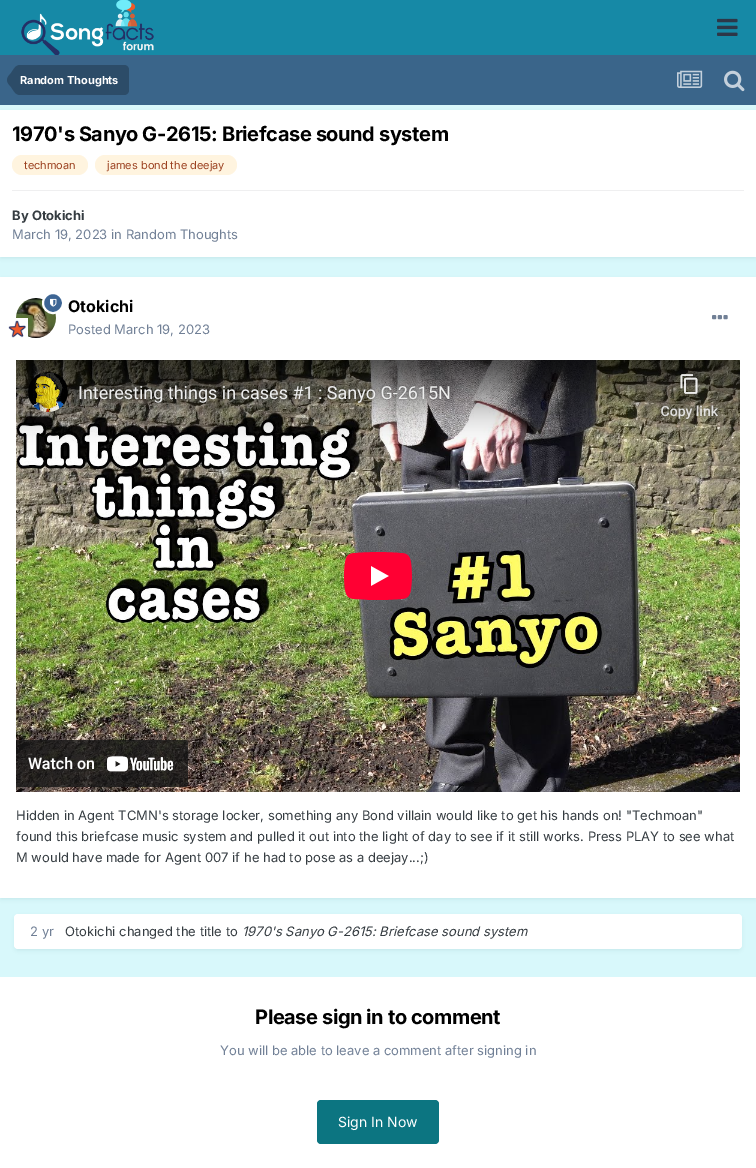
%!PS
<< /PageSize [756 1168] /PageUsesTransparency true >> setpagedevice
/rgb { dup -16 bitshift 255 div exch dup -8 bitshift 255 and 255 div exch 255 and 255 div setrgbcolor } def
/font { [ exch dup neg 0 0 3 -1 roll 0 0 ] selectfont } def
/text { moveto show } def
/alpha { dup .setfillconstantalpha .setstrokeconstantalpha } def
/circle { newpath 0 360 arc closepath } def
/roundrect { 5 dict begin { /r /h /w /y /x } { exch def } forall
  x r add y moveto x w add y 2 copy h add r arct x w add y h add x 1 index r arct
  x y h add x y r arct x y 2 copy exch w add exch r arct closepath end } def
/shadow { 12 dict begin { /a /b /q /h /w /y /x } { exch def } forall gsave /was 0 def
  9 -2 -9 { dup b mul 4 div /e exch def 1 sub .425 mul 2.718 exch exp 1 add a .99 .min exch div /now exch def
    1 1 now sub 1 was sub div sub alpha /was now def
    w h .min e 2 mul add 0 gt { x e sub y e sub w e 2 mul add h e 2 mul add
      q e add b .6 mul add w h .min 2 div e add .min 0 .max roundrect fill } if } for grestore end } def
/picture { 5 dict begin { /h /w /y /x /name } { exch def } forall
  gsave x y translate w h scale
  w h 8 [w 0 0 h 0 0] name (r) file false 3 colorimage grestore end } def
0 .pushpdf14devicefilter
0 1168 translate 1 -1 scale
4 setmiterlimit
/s1 { /Inter-Bold 11 font 16#FFFFFF rgb } def
/s2 { /Inter-Regular 11 font 16#9C4221 rgb } def
/s3 { /Inter-Bold 13 font 16#353C41 rgb } def
/s4 { /Inter-Regular 13 font 16#718096 rgb } def
/s5 { /Inter-Bold 16 font 16#000000 rgb } def
/s6 { /Inter-Regular 13 font 16#353C41 rgb } def
/s7 { /Inter-Italic 13 font 16#353C41 rgb } def
/s8 { /Inter-Regular 14 font 16#FFFFFF rgb } def
16#D8F8FB rgb
0 0 756 1168 rectfill
16#1689A6 rgb
0 0 756 55 rectfill
(pic1.raw) 21 0 133 55 picture
(pic2.raw) 717 18 21 18 picture
16#3A658A rgb
0 55 756 50 rectfill
16#2C4C68 rgb
20 65 moveto 124 65 lineto 127 65 129 67 129 70 curveto 129 90 lineto 129 93 127 95 124 95 curveto 20 95 lineto closepath fill
20 80 moveto 20 95 lineto 15.5 95 13.5 90.5 11 87 curveto 9.5 85 7 83 7 80 curveto closepath 20 80 moveto 7 80 lineto 7 77 9.5 75 11 73 curveto 13.5 69.5 15.5 65 20 65 curveto closepath fill
s1
(Random Thoughts) 20 84 text
(pic3.raw) 677 70 26 18 picture
(pic4.raw) 724 70 21 22 picture
16#084A51 rgb
1 113 754 145 0 2 0.1 shadow
16#FFFFFF rgb
0 110 756 147 rectfill
/Inter-Bold 20 font
16#000000 rgb
12 141 moveto -0.4 0 (1970's Sanyo G-2615: Briefcase sound system) ashow
16#FFF4DF rgb
12 155 76 20 10 roundrect fill
s2
(techmoan) 24 169 text
16#FFF4DF rgb
95 155 142 20 10 roundrect fill
s2
(james bond the deejay) 107 169 text
16#EFEFF0 rgb
12 190 732 1 rectfill
s3
(By Otokichi) 12 220 text
s4
(March 19, 2023 in Random Thoughts) 12 239 text
16#084A51 rgb
1 280 754 619 0 2 0.1 shadow
16#FFFFFF rgb
0 277 756 621 rectfill
(pic6.raw) 16 298 40 40 picture
16#3D6594 rgb
53 303 10 circle gsave fill grestore
16#FFFFFF rgb
2 setlinewidth
stroke
(pic5.raw) 50 298 7 9 picture
(pic7.raw) 8 318 20 20 picture
s5
(Otokichi) 68 312 text
s4
(Posted March 19, 2023) 68 334 text
(pic8.raw) 712 315 16 5 picture
(pic9.raw) 16 360 724 432 picture
s6
(Hidden in Agent TCMN's storage locker, something any Bond villain would like to get his hands on! "Techmoan") 16 820 text
(found this briefcase music system and pulled it out into the light of day to see if it still works. Press PLAY to see what) 16 841 text
(M would have made for Agent 007 if he had to pose as a deejay...;\)) 16 862 text
16#084A51 rgb
15 917 726 33 3 2 0.1 shadow
16#FFFFFF rgb
14 914 728 35 4 roundrect fill
s4
(2 yr) 30 936 text
s6
(Otokichi changed the title to) 65 936 text
s7
(1970's Sanyo G-2615: Briefcase sound system) 242 936 text
16#FFFFFF rgb
0 977 756 191 rectfill
/Inter-Bold 20 font
16#000000 rgb
255 1024 moveto -0.4 0 (Please sign in to comment) ashow
s4
(You will be able to leave a comment after signing in) 220 1055 text
16#0C7581 rgb
317 1100 122 44 4 roundrect fill
s8
(Sign In Now) 338 1127 text
.poppdf14devicefilter showpage
